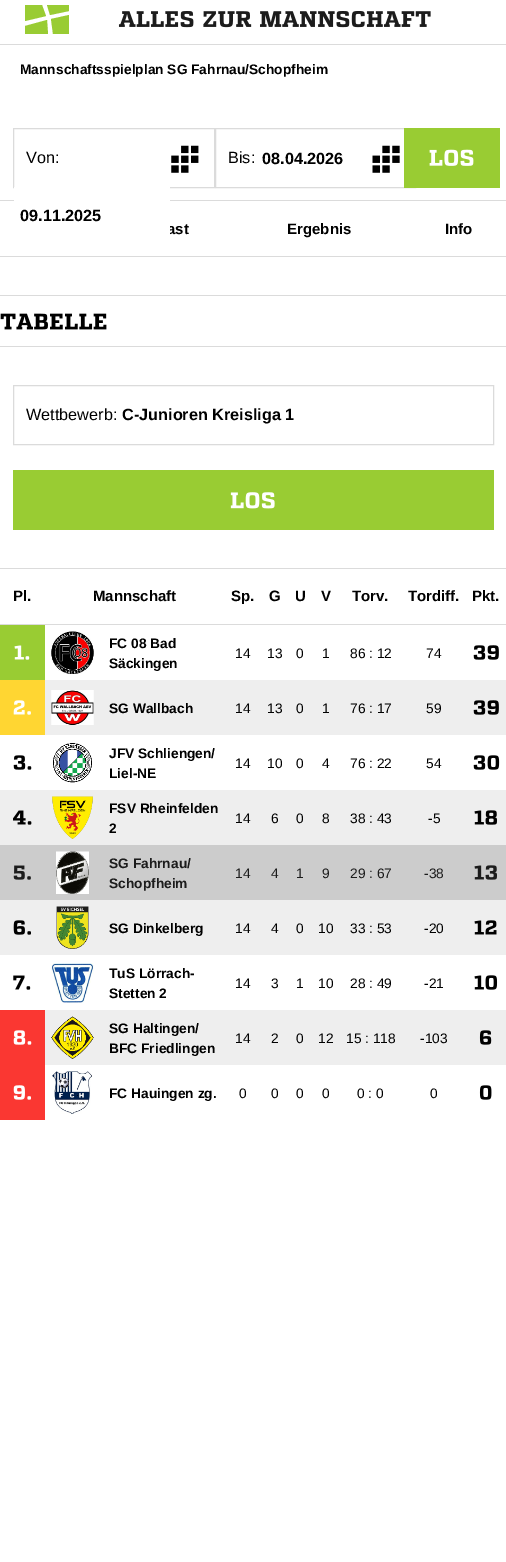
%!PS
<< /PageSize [506 1562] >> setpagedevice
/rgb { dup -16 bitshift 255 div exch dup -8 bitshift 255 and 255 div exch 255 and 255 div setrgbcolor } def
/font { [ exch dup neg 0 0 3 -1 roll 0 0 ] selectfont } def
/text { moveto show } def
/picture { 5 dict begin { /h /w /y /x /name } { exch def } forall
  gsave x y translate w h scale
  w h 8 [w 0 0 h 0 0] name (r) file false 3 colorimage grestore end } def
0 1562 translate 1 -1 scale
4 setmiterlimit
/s1 { /LiberationSans-Bold 13.75 font 16#000000 rgb } def
/s2 { /LiberationSans-Regular 16.25 font 16#000000 rgb } def
/s3 { /LiberationSans-Bold 15 font 16#000000 rgb } def
/s4 { /LiberationSans-Bold 16.25 font 16#000000 rgb } def
/s5 { /LiberationSans-Regular 13.75 font 16#000000 rgb } def
/s6 { /LiberationSans-Bold 13.75 font 16#1C1C1C rgb } def
/s7 { /LiberationSans-Regular 13.75 font 16#1C1C1C rgb } def
16#FFFFFF rgb
0 0 506 1562 rectfill
16#DBDBDB rgb
0 44 506 1 rectfill
16#99CC33 rgb
47 20 moveto 48 34 lineto 25 34 lineto 25 26 lineto closepath 25 21 moveto 25 5 lineto 42 5 lineto 46 16 lineto closepath 53 34 moveto 51 19 lineto 69 15 lineto 69 34 lineto closepath 69 5 moveto 69 11 lineto 50 15 lineto 47 5 lineto closepath eofill
(pic1.raw) 118 11 313 17 picture
s1
(Mannschaftsspielplan SG Fahrnau/Schopfheim) 20 74 text
16#DBDBDB rgb
13.5 128.5 201 59 rectstroke
s2
(Von:) 26 163 text
(pic2.raw) 171 145 28 28 picture
16#DBDBDB rgb
0 200 506 1 rectfill
s3
(ast) 167 234 text
16#FFFFFF rgb
14 187 156 48 rectfill
s4
(09.11.2025) 20 221 text
16#DBDBDB rgb
215.5 128.5 200 59 rectstroke
s2
(Bis:) 228 163 text
s4
(08.04.2026) 262 164 text
(pic3.raw) 372 145 28 28 picture
16#99CC33 rgb
404 128 96 60 rectfill
(pic4.raw) 429 149 45 17 picture
s3
(Ergebnis) 287 234 text
(Info) 445 234 text
16#DBDBDB rgb
0 256 506 1 rectfill
0 295 506 1 rectfill
0 346 506 1 rectfill
(pic5.raw) 0 313 107 17 picture
0 568 506 1 rectfill
13.5 385.5 480 59 rectstroke
s2
(Wettbewerb:) 26 420 text
s4
(C-Junioren Kreisliga 1) 122 420 text
16#99CC33 rgb
13 470 481 60 rectfill
(pic6.raw) 230 492 45 17 picture
16#DBDBDB rgb
0 624 506 1 rectfill
s3
(Pl.) 13 601 text
(Mannschaft) 93 601 text
(Sp.) 231 601 text
(G) 269 601 text
(U) 295 601 text
(V) 321 601 text
(Torv.) 352 601 text
(Tordiff.) 408 601 text
(Pkt.) 472 601 text
16#99CC33 rgb
0 625 45 55 rectfill
(pic7.raw) 51 631 43 43 picture
s1
(FC 08 Bad) 109 648 text
(Säckingen) 109 668 text
(pic8.raw) 14 645 16 15 picture
s5
(14) 235 658 text
(13) 267 658 text
(0) 296 658 text
(1) 322 658 text
(86 : 12) 350 658 text
(74) 426 658 text
(pic9.raw) 473 645 26 15 picture
16#FFD632 rgb
0 680 45 55 rectfill
(pic10.raw) 13 700 18 15 picture
16#EEEEEE rgb
45 680 461 55 rectfill
(pic11.raw) 51 690 43 35 picture
s1
(SG Wallbach) 109 713 text
s5
(14) 235 713 text
(13) 267 713 text
(0) 296 713 text
(1) 322 713 text
(76 : 17) 350 713 text
(59) 426 713 text
(pic12.raw) 473 700 26 15 picture
(pic13.raw) 13 755 19 15 picture
(pic14.raw) 53 743 39 40 picture
s1
(JFV Schliengen/) 109 758 text
(Liel-NE) 109 778 text
s5
(14) 235 768 text
(10) 267 768 text
(0) 296 768 text
(4) 322 768 text
(76 : 22) 350 768 text
(54) 426 768 text
(pic15.raw) 473 755 27 15 picture
16#EEEEEE rgb
0 790 506 55 rectfill
(pic16.raw) 13 810 19 15 picture
(pic17.raw) 52 796 41 43 picture
s1
(FSV Rheinfelden) 109 813 text
(2) 109 833 text
s5
(14) 235 823 text
(6) 271 823 text
(0) 296 823 text
(8) 322 823 text
(38 : 43) 350 823 text
(-5) 428 823 text
(pic18.raw) 474 810 23 15 picture
16#CCCCCC rgb
0 845 506 55 rectfill
(pic19.raw) 13 865 18 15 picture
(pic20.raw) 56 851 33 43 picture
s6
(SG Fahrnau/) 109 868 text
(Schopfheim) 109 888 text
s7
(14) 235 878 text
(4) 271 878 text
(1) 296 878 text
(9) 322 878 text
(29 : 67) 350 878 text
(-38) 424 878 text
(pic21.raw) 474 865 23 15 picture
16#EEEEEE rgb
0 900 506 55 rectfill
(pic22.raw) 13 920 18 15 picture
(pic23.raw) 56 906 33 43 picture
s1
(SG Dinkelberg) 109 933 text
s5
(14) 235 933 text
(4) 271 933 text
(0) 296 933 text
(10) 318 933 text
(33 : 53) 350 933 text
(-20) 424 933 text
(pic24.raw) 474 920 23 15 picture
(pic25.raw) 13 975 18 15 picture
(pic26.raw) 51 963 43 40 picture
s1
(TuS Lörrach-) 109 978 text
(Stetten 2) 109 998 text
s5
(14) 235 988 text
(3) 271 988 text
(1) 296 988 text
(10) 318 988 text
(28 : 49) 350 988 text
(-21) 424 988 text
(pic27.raw) 474 975 24 15 picture
16#FA3732 rgb
0 1010 45 55 rectfill
16#EEEEEE rgb
45 1010 461 55 rectfill
(pic28.raw) 51 1016 43 43 picture
s1
(SG Haltingen/) 109 1033 text
(BFC Friedlingen) 109 1053 text
(pic29.raw) 13 1030 19 15 picture
s5
(14) 235 1043 text
(2) 271 1043 text
(0) 296 1043 text
(12) 318 1043 text
(15 : 118) 346 1043 text
(-103) 420 1043 text
(pic30.raw) 479 1030 13 15 picture
16#FA3732 rgb
0 1065 45 55 rectfill
(pic31.raw) 13 1085 18 15 picture
(pic32.raw) 52 1071 40 43 picture
s1
(FC Hauingen zg.) 109 1098 text
s5
(0) 239 1098 text
(0) 271 1098 text
(0) 296 1098 text
(0) 322 1098 text
(0 : 0) 357 1098 text
(0) 430 1098 text
(pic33.raw) 479 1085 13 15 picture
showpage
